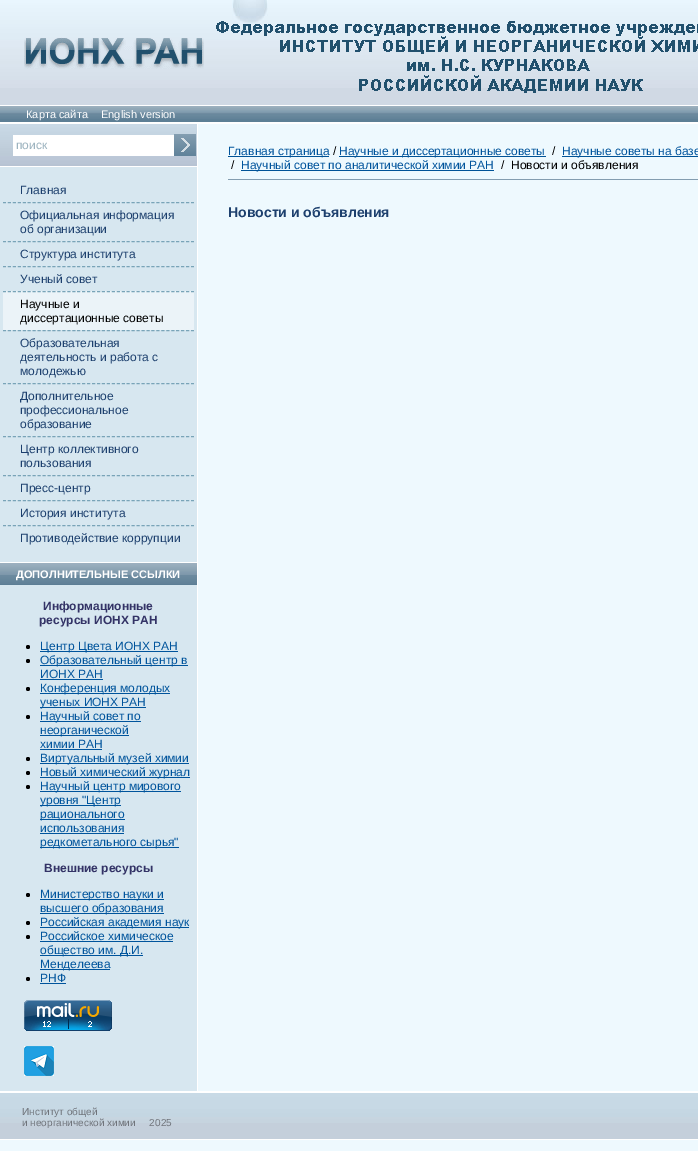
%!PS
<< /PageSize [698 1151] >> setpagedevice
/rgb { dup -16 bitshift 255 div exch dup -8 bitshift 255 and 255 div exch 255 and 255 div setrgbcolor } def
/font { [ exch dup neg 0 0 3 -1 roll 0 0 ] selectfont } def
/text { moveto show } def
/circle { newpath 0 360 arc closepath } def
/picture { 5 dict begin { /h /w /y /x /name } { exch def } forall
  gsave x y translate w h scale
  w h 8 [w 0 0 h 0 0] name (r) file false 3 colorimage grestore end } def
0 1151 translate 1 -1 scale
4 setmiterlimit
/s1 { /LiberationSans-Regular 11 font 16#FFFFFF rgb } def
/s2 { /LiberationSans-Regular 12 font 16#9CB3BF rgb } def
/s3 { /LiberationSans-Regular 12 font 16#1D406E rgb } def
/s4 { /LiberationSans-Regular 12 font 16#000000 rgb } def
/s5 { /LiberationSans-Bold 11 font 16#FFFFFF rgb } def
/s6 { /LiberationSans-Bold 12 font 16#333366 rgb } def
/s7 { /LiberationSans-Regular 12 font 16#00549C rgb } def
/s8 { /LiberationSans-Bold 14 font 16#1D406E rgb } def
/s9 { /LiberationSans-Regular 10 font 16#70747B rgb } def
16#EEF9FE rgb
0 0 698 1151 rectfill
16#D0D9E4 rgb
0 88 698 17 rectfill
(pic1.raw) 0 0 698 88 picture
(pic2.raw) 232 0 36 24 picture
(pic3.raw) 24 37 180 32 picture
(pic4.raw) 216 21 482 72 picture
16#5D7F95 rgb
0 119 698 3 rectfill
(pic5.raw) 0 106 698 13 picture
16#FFFFFF rgb
0 105 698 1 rectfill
s1
(Карта сайта) 26 118 text
(English version) 101 118 text
197 123 1 970 rectfill
0 122 698 2 rectfill
0 1091 698 2 rectfill
16#D7E7F0 rgb
0 167 197 924 rectfill
(pic6.raw) 0 124 197 42 picture
16#FFFFFF rgb
0 166 197 1 rectfill
13 135 161 21 rectfill
s2
(поиск) 16 149 text
(pic7.raw) 174 134 22 22 picture
16#FFFFFF rgb
0 562 197 1 rectfill
s3
(Главная) 20 194 text
16#79A4B8 rgb
[3 1.95] 0 setdash
3 202.5 moveto 194 202.5 lineto stroke
s3
(Официальная информация) 20 219 text
(об организации) 20 233 text
16#79A4B8 rgb
3 241.5 moveto 194 241.5 lineto stroke
s3
(Структура института) 20 258 text
16#79A4B8 rgb
3 266.5 moveto 194 266.5 lineto stroke
s3
(Ученый совет) 20 283 text
16#EBF3F8 rgb
3 291 191 39 rectfill
16#79A4B8 rgb
3 291.5 moveto 194 291.5 lineto stroke
s4
(Научные и) 20 308 text
(диссертационные советы) 20 322 text
16#79A4B8 rgb
3 330.5 moveto 194 330.5 lineto stroke
s3
(Образовательная) 20 347 text
(деятельность и работа с) 20 361 text
(молодежью) 20 375 text
16#79A4B8 rgb
3 383.5 moveto 194 383.5 lineto stroke
s3
(Дополнительное) 20 400 text
(профессиональное) 20 414 text
(образование) 20 428 text
16#79A4B8 rgb
3 436.5 moveto 194 436.5 lineto stroke
s3
(Центр коллективного) 20 453 text
(пользования) 20 467 text
16#79A4B8 rgb
3 475.5 moveto 194 475.5 lineto stroke
s3
(Пресс-центр) 20 492 text
16#79A4B8 rgb
3 500.5 moveto 194 500.5 lineto stroke
s3
(История института) 20 517 text
16#79A4B8 rgb
3 525.5 moveto 194 525.5 lineto stroke
s3
(Противодействие коррупции) 20 542 text
16#5C7E95 rgb
0 584 197 1 rectfill
(pic8.raw) 0 563 197 21 picture
s5
(ДОПОЛНИТЕЛЬНЫЕ ССЫЛКИ) 16 578 text
s6
(Информационные) 43 610 text
(ресурсы ИОНХ РАН) 39 624 text
16#000000 rgb
28 647 2 circle fill
16#00549C rgb
40 651 138 1 rectfill
s7
(Центр Цвета ИОНХ РАН) 40 650 text
16#000000 rgb
28 661 2 circle fill
16#00549C rgb
40 665 148 1 rectfill
(Образовательный центр в) 40 664 text
(ИОНХ РАН) 40 678 text
40 679 63 1 rectfill
16#000000 rgb
28 689 2 circle fill
16#00549C rgb
40 693 130 1 rectfill
(Конференция молодых) 40 692 text
40 707 106 1 rectfill
(ученых ИОНХ РАН) 40 706 text
16#000000 rgb
28 717 2 circle fill
16#00549C rgb
40 721 101 1 rectfill
(Научный совет по) 40 720 text
40 735 89 1 rectfill
(неорганической) 40 734 text
(химии РАН) 40 748 text
40 749 62 1 rectfill
16#000000 rgb
28 759 2 circle fill
16#00549C rgb
40 763 149 1 rectfill
(Виртуальный музей химии) 40 762 text
16#000000 rgb
28 773 2 circle fill
16#00549C rgb
40 777 150 1 rectfill
(Новый химический журнал) 40 776 text
16#000000 rgb
28 787 2 circle fill
16#00549C rgb
40 791 141 1 rectfill
(Научный центр мирового) 40 790 text
40 805 81 1 rectfill
(уровня "Центр) 40 804 text
40 819 85 1 rectfill
(рационального) 40 818 text
(использования) 40 832 text
40 833 84 1 rectfill
40 847 139 1 rectfill
(редкометального сырья") 40 846 text
s6
(Внешние ресурсы) 44 872 text
16#000000 rgb
28 895 2 circle fill
16#00549C rgb
40 899 124 1 rectfill
s7
(Министерство науки и) 40 898 text
40 913 124 1 rectfill
(высшего образования) 40 912 text
16#000000 rgb
28 923 2 circle fill
16#00549C rgb
40 927 149 1 rectfill
(Российская академия наук) 40 926 text
16#000000 rgb
28 937 2 circle fill
s7
(Российское химическое) 40 940 text
40 941 133 1 rectfill
40 955 103 1 rectfill
(общество им. Д.И.) 40 954 text
40 969 70 1 rectfill
(Менделеева) 40 968 text
16#000000 rgb
28 979 2 circle fill
s7
(РНФ) 40 982 text
40 983 26 1 rectfill
(pic9.raw) 24 1000 88 31 picture
(pic10.raw) 24 1046 30 30 picture
16#839DB0 rgb
228 179 470 1 rectfill
16#005397 rgb
228 156 101 1 rectfill
s7
(Главная страница) 228 155 text
s4
(/) 333 155 text
16#005397 rgb
339 156 207 1 rectfill
s7
(Научные и диссертационные советы) 339 155 text
s4
(/) 552 155 text
16#005397 rgb
562 156 136 1 rectfill
s7
(Научные советы на базе) 562 155 text
s4
(/) 231 169 text
16#005397 rgb
241 170 253 1 rectfill
s7
(Научный совет по аналитической химии РАН) 241 169 text
s4
(/  Новости и объявления) 501 169 text
s8
(Новости и объявления) 228 217 text
16#C4CFDB rgb
0 1123 698 16 rectfill
(pic11.raw) 0 1093 698 30 picture
16#FFFFFF rgb
0 1139 698 1 rectfill
s9
(Институт общей) 22 1115 text
(и неорганической химии     2025) 22 1126 text
showpage
